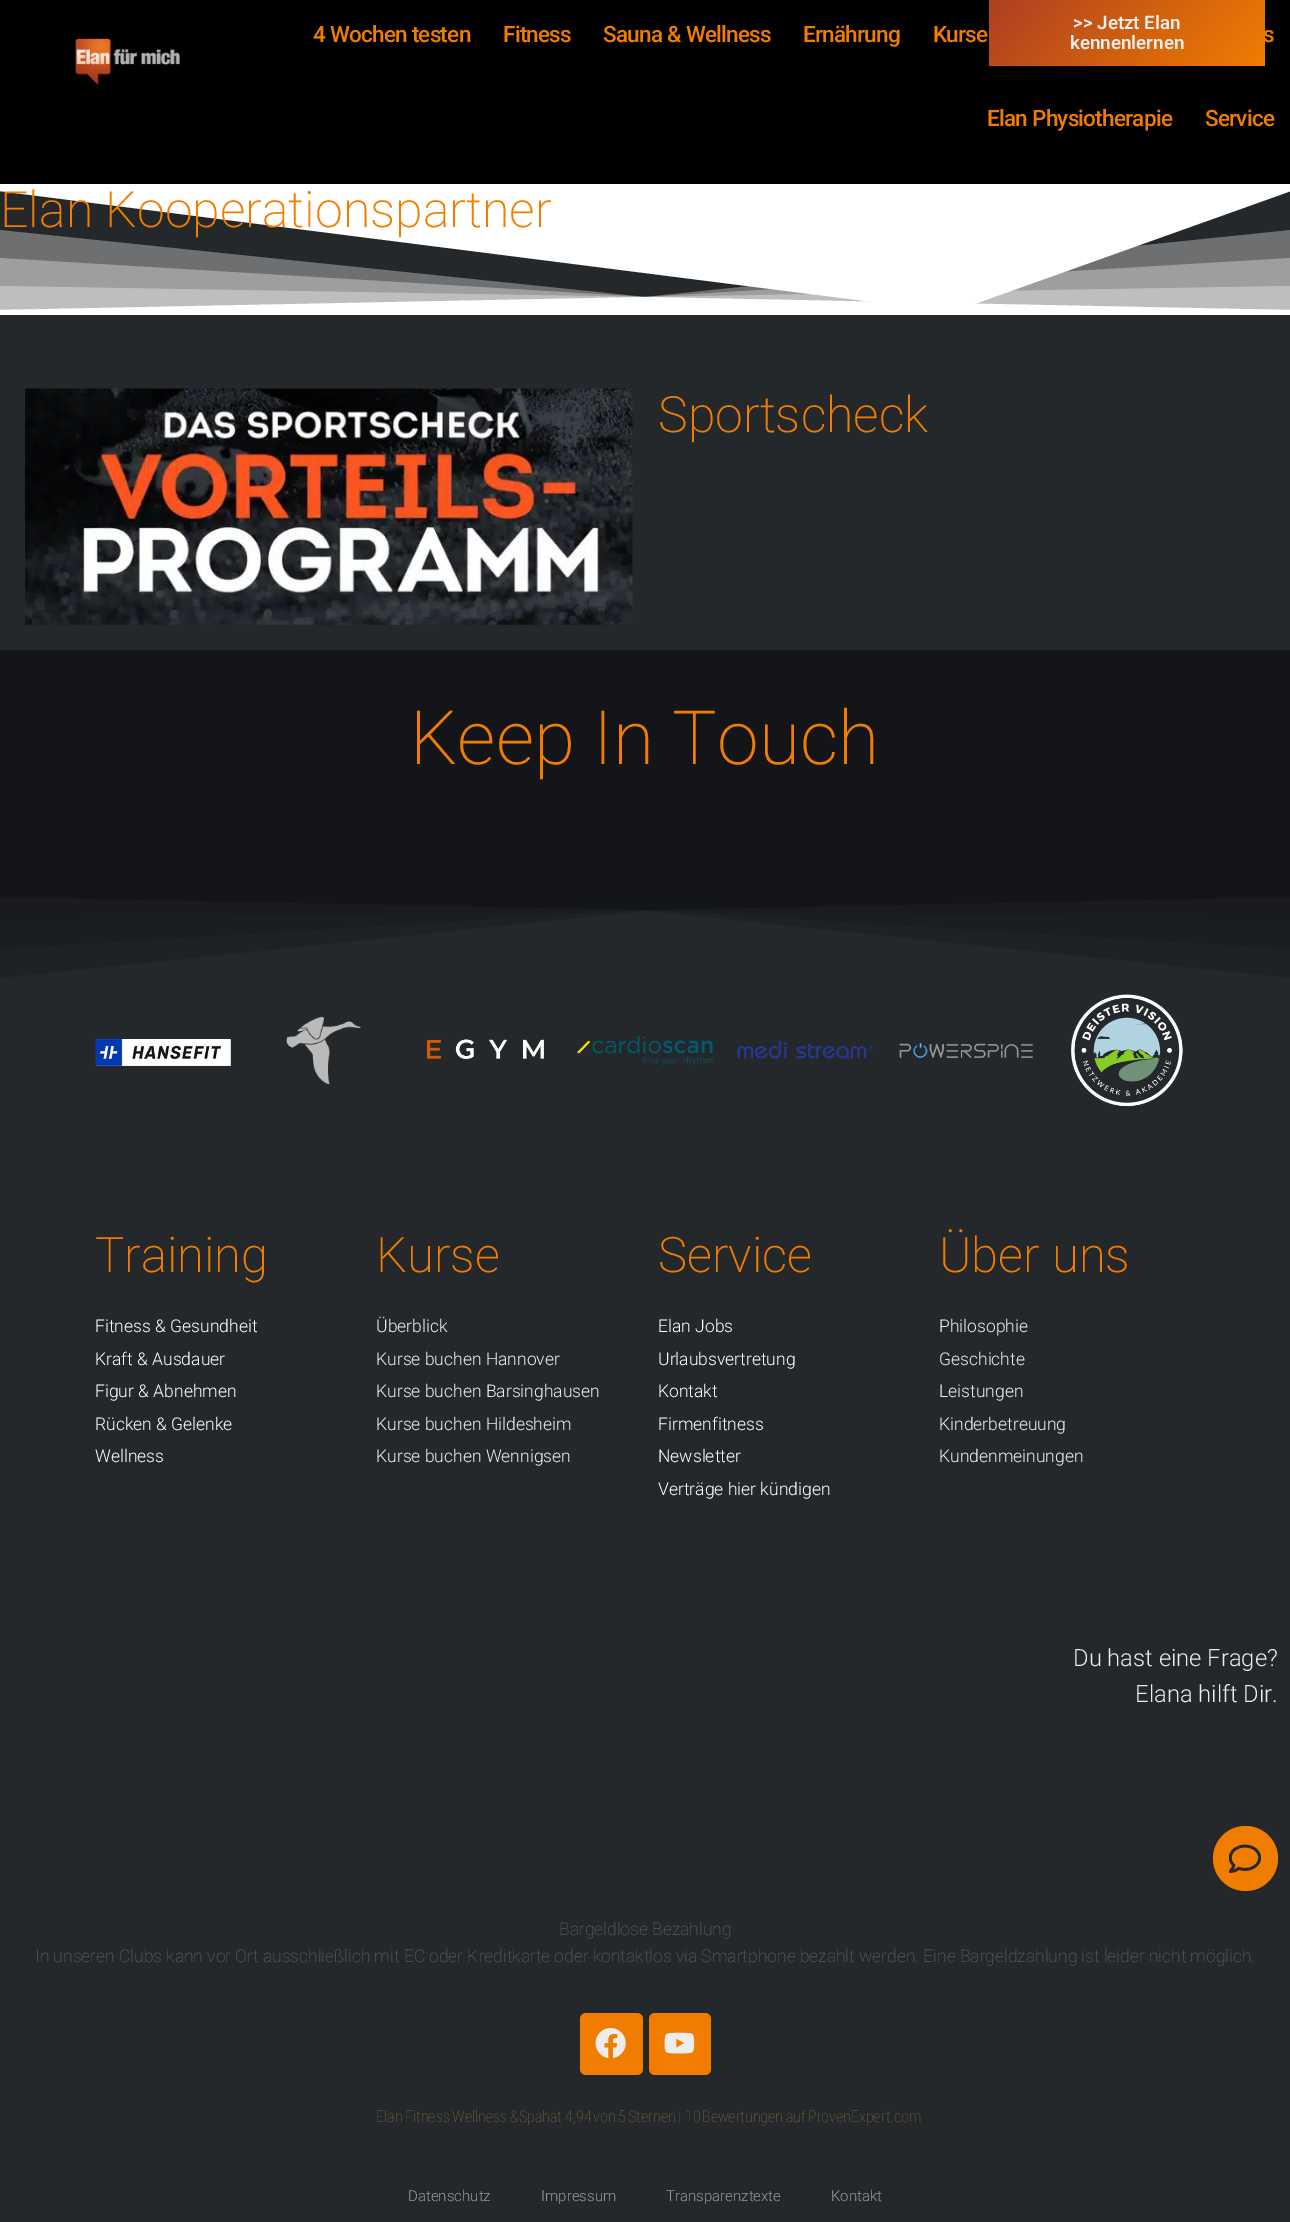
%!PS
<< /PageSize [1290 2222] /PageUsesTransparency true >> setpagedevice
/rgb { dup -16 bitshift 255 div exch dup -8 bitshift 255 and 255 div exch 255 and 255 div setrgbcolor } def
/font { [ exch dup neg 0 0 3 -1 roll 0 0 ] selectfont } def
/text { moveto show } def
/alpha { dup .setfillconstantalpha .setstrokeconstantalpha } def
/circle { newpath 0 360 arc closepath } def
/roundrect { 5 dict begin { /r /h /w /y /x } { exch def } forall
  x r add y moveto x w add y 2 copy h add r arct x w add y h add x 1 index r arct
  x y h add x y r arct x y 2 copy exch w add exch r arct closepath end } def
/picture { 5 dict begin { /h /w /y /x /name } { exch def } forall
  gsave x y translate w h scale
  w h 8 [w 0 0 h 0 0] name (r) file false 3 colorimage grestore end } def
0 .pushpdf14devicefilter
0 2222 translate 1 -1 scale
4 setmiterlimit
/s1 { /Roboto-SemiBold 18.75 font 16#F0ECEB rgb } def
/s2 { /Roboto-ExtraLight 50 font 16#F07D00 rgb } def
/s3 { /Roboto-ExtraLight 75 font 16#F07D00 rgb } def
/s4 { /Roboto-ExtraLight 49 font 16#F07D00 rgb } def
/s5 { /Roboto-Light 17.5 font 16#FFFFFF rgb } def
/s6 { /Roboto-Light 17.5 font 16#F0ECEB rgb } def
/s7 { /Roboto-Light 23.75 font 16#F0ECEB rgb } def
/s8 { /Roboto-ExtraLight 17.5 font 16#54595F rgb } def
/s9 { /RobotoCondensed-Thin 16 font 16#726542 rgb } def
/s10 { /Roboto-Light 15 font 16#999999 rgb } def
16#25282B rgb
0 0 1290 2222 rectfill
16#000000 rgb
0 0 1290 184 rectfill
(pic1.raw) 74 38 106 51 picture
/Roboto-Medium 22.5 font
16#F07D00 rgb
1263 42 moveto -0.75 0 (s) ashow
gsave 989 0 276 66 2.5 roundrect clip newpath
<< /ShadingType 2 /ColorSpace /DeviceRGB /Coords [1030 -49 1224 115] /Extend [true true] /Function << /FunctionType 2 /Domain [0 1] /C0 [0.682 0.247 0.129] /C1 [0.941 0.49 0] /N 1 >> >> shfill grestore
s1
(>> Jetzt Elan) 1073 29 text
(kennenlernen) 1070 49 text
/Roboto-Medium 22.5 font
16#F07D00 rgb
313 42 moveto -0.75 0 (4 Wochen testen) ashow
503 42 moveto -0.75 0 (Fitness) ashow
603 42 moveto -0.75 0 (Sauna & Wellness) ashow
803 42 moveto -0.75 0 (Ernährung) ashow
933 42 moveto -0.75 0 (Kurse) ashow
987 126 moveto -0.75 0 (Elan Physiotherapie) ashow
1205 126 moveto -0.75 0 (Service) ashow
16#FFFFFF rgb
952 312 moveto 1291 191 lineto 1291 184 lineto -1 184 lineto -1 191 lineto closepath fill
0.33 alpha
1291 315 moveto 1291 230 lineto 645 297 lineto -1 230 lineto -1 315 lineto closepath fill
1 alpha
s2
(Elan Kooperationspartner) 0 227 text
0.33 alpha
16#FFFFFF rgb
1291 315 moveto 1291 258 lineto 645 297 lineto -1 258 lineto -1 315 lineto closepath fill
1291 315 moveto 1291 286 lineto 645 297 lineto -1 286 lineto -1 315 lineto closepath fill
1 alpha
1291 315 moveto 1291 310 lineto 645 297 lineto -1 310 lineto -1 315 lineto closepath fill
(pic2.raw) 25 388 608 237 picture
s2
(Sportscheck) 658 432 text
16#141519 rgb
0 650 1290 206 rectfill
s3
(Keep In Touch) 410 764 text
0.33 alpha
16#141519 rgb
-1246 856 moveto -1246 1107 lineto 646 911 lineto 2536 1107 lineto 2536 856 lineto closepath fill
-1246 856 moveto -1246 1024 lineto 646 910 lineto 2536 1024 lineto 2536 856 lineto closepath fill
-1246 856 moveto -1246 942 lineto 646 910 lineto 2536 942 lineto 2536 856 lineto closepath fill
1 alpha
-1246 856 moveto -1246 872 lineto 646 910 lineto 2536 872 lineto 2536 856 lineto closepath fill
(pic3.raw) 95 1039 136 27 picture
(pic4.raw) 286 1016 75 69 picture
(pic5.raw) 426 1039 118 20 picture
(pic6.raw) 577 1036 136 29 picture
(pic7.raw) 737 1041 137 18 picture
(pic8.raw) 899 1042 134 16 picture
(pic9.raw) 1071 994 112 113 picture
s4
(Training) 95 1272 text
s5
(Fitness & Gesundheit) 95 1332 text
(Kraft & Ausdauer) 95 1365 text
(Figur & Abnehmen) 95 1397 text
(Rücken & Gelenke) 95 1430 text
(Wellness) 95 1462 text
s4
(Kurse) 376 1272 text
s6
(Überblick) 376 1332 text
(Kurse buchen Hannover) 376 1365 text
(Kurse buchen Barsinghausen) 376 1397 text
(Kurse buchen Hildesheim) 376 1430 text
(Kurse buchen Wennigsen) 376 1462 text
s4
(Service) 658 1272 text
s5
(Elan Jobs) 658 1332 text
(Urlaubsvertretung) 658 1365 text
(Kontakt) 658 1397 text
(Firmenfitness) 658 1430 text
(Newsletter) 658 1462 text
(Verträge hier kündigen) 658 1495 text
s4
(Über uns) 939 1272 text
s6
(Philosophie) 939 1332 text
(Geschichte) 939 1365 text
(Leistungen) 939 1397 text
(Kinderbetreuung) 939 1430 text
(Kundenmeinungen) 939 1462 text
s7
(Du hast eine Frage?) 1073 1666 text
(Elana hilft Dir.) 1135 1702 text
16#F07D00 rgb
1245.5 1858.5 32.5 circle fill
(pic10.raw) 1229 1844 32 29 picture
s8
(Bargeldlose Bezahlung) 559 1935 text
(In unseren Clubs kann vor Ort ausschließlich mit EC oder Kreditkarte oder kontaktlos via Smartphone bezahlt werden. Eine Bargeldzahlung ist leider nicht möglich.) 35 1962 text
16#F07D00 rgb
580 2013 63 62 6 roundrect fill
(pic11.raw) 595 2028 31 30 picture
649 2013 62 62 6 roundrect fill
(pic12.raw) 664 2032 31 22 picture
/RobotoCondensed-Thin 16 font
16#726542 rgb
376 2122 moveto -1 0 32 (Elan Fitness Wellness &Spa) widthshow
(hat 4,94) 542 2122 text
(von) 593 2122 text
(5) 618 2122 text
(Sternen) 628 2122 text
(| 10) 678 2122 text
702 2122 moveto -1 0 32 (Bewertungen auf ProvenExpert.com) widthshow
s10
(Datenschutz) 408 2201 text
(Impressum) 541 2201 text
(Transparenztexte) 666 2201 text
(Kontakt) 831 2201 text
.poppdf14devicefilter showpage
